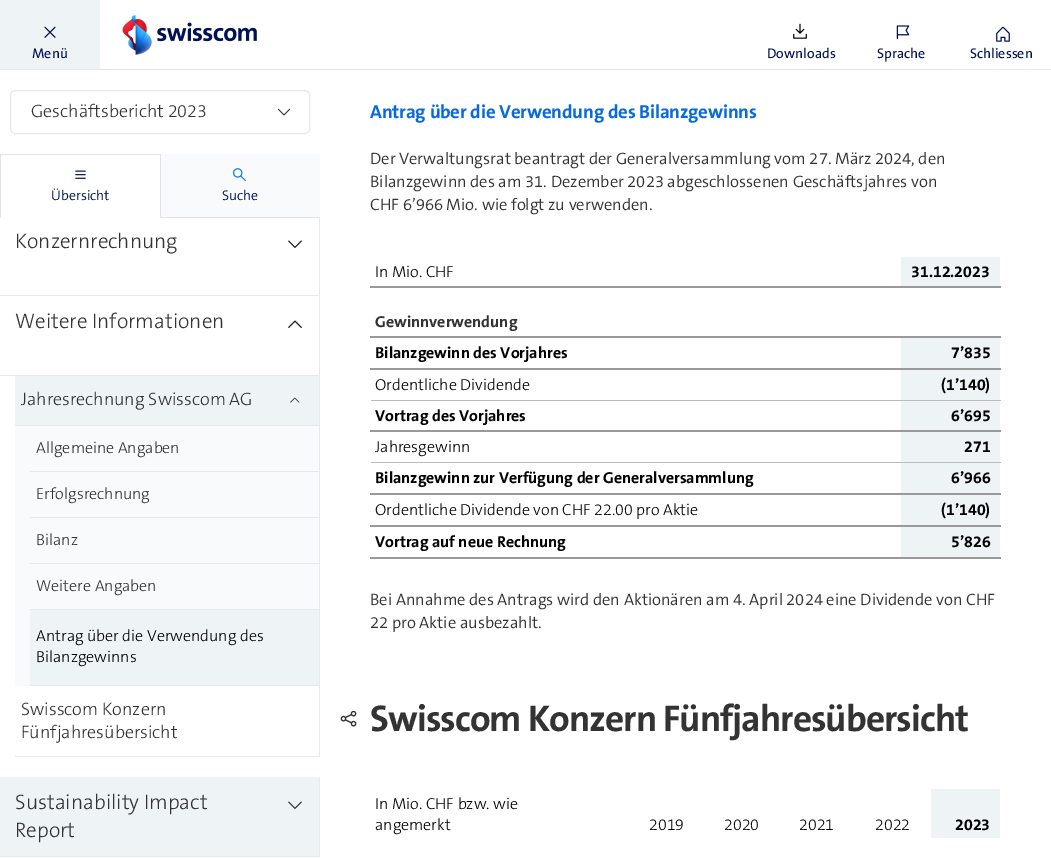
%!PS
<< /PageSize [1051 858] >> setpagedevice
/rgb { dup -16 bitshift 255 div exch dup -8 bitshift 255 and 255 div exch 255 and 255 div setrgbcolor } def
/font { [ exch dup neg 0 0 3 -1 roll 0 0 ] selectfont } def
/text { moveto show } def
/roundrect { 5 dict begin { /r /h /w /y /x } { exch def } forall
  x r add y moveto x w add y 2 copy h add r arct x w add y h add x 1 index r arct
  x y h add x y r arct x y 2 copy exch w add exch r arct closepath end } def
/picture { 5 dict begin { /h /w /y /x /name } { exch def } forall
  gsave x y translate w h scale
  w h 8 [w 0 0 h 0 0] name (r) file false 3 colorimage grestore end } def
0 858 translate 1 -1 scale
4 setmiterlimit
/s1 { /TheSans-Medium 14 font 16#001155 rgb } def
/s2 { /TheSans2-Light 18 font 16#333333 rgb } def
/s3 { /TheSans-Light 14 font 16#001155 rgb } def
/s4 { /TheSans2-Light 21 font 16#333333 rgb } def
/s5 { /TheSans2-Light 16 font 16#333333 rgb } def
/s6 { /TheSans2-Light 16 font 16#000000 rgb } def
/s7 { /TheSans-Light 16.5 font 16#333333 rgb } def
/s8 { /TheSans-Bold 16 font 16#000000 rgb } def
/s9 { /TheSans-Bold 16 font 16#333333 rgb } def
16#FFFFFF rgb
0 0 1051 858 rectfill
16#DDE3E7 rgb
100 69 851 1 rectfill
16#EEF3F6 rgb
0 0 100 69 rectfill
16#E4E9EC rgb
0 69 100 1 rectfill
(pic1.raw) 44 26 12 12 picture
s1
(Menü) 32 58 text
(pic2.raw) 122 15 135 40 picture
(pic3.raw) 793 23 14 16 picture
(Downloads) 767 58 text
(pic4.raw) 896 25 14 15 picture
(Sprache) 877 58 text
16#E4E9EC rgb
951 69 100 1 rectfill
(pic5.raw) 996 26 14 16 picture
s1
(Schliessen) 970 58 text
16#E4E9EC rgb
10.5 90.5 299 43 4.5 roundrect stroke
s2
(Geschäftsbericht 2023) 31 117 text
(pic6.raw) 277 108 14 8 picture
16#DDE3E7 rgb
0 154 161 1 rectfill
161 154 moveto 161 218 lineto 160 217 lineto 160 155 lineto closepath fill
0 218 moveto 0 154 lineto 1 155 lineto 1 217 lineto closepath fill
(pic7.raw) 75 170 11 9 picture
s3
(Übersicht) 51 200 text
16#F8FAFB rgb
161 154 159 64 rectfill
16#DDE3E7 rgb
320 218 moveto 161 218 lineto 161 217 lineto 319 217 lineto closepath fill
(pic8.raw) 232 168 14 14 picture
s3
(Suche) 222 200 text
16#E4E9EC rgb
319 218 1 539 rectfill
0 295 319 1 rectfill
s4
(Konzernrechnung) 15 248 text
(pic9.raw) 288 240 14 8 picture
16#E4E9EC rgb
0 375 319 1 rectfill
s4
(Weitere Informationen) 15 328 text
(pic10.raw) 288 320 14 8 picture
16#EEF3F6 rgb
15 376 304 49 rectfill
16#E4E9EC rgb
15 425 304 1 rectfill
s2
(Jahresrechnung Swisscom AG) 21 405 text
(pic11.raw) 290 397 10 6 picture
16#F8FAFB rgb
15 426 304 260 rectfill
16#E4E9EC rgb
30 471 289 1 rectfill
s5
(Allgemeine Angaben) 36 453 text
16#E4E9EC rgb
30 517 289 1 rectfill
s5
(Erfolgsrechnung) 36 499 text
16#E4E9EC rgb
30 563 289 1 rectfill
s5
(Bilanz) 36 545 text
16#E4E9EC rgb
30 609 289 1 rectfill
s5
(Weitere Angaben) 36 591 text
16#EEF3F6 rgb
30 610 289 75 rectfill
16#E4E9EC rgb
30 685 289 1 rectfill
s6
(Antrag über die Verwendung des) 36 641 text
(Bilanzgewinns) 36 662 text
16#E4E9EC rgb
15 756 304 1 rectfill
s2
(Swisscom Konzern) 21 715 text
(Fünfjahresübersicht) 21 738 text
16#EEF3F6 rgb
0 777 319 79 rectfill
16#E4E9EC rgb
319 777 1 80 rectfill
0 856 319 1 rectfill
s4
(Sustainability Impact) 15 809 text
(Report) 15 837 text
(pic12.raw) 288 801 14 8 picture
/TheSans-Bold 18.95 font
16#086ADB rgb
370 118 moveto -0.2 0 (Antrag über die Verwendung des Bilanzgewinns) ashow
s7
(Der Verwaltungsrat beantragt der Generalversammlung vom 27. März 2024, den) 370 164 text
(Bilanzgewinn des am 31. Dezember 2023 abgeschlossenen Geschäftsjahres von) 370 187 text
(CHF 6’966 Mio. wie folgt zu verwenden.) 370 210 text
16#999999 rgb
370 286 631 2 rectfill
s6
(In Mio. CHF) 375 277 text
16#EEF3F6 rgb
901 257 99 29 rectfill
s8
(31.12.2023) 911 277 text
16#999999 rgb
370 336 631 2 rectfill
s9
(Gewinnverwendung) 375 327 text
16#999999 rgb
370 368 631 2 rectfill
s8
(Bilanzgewinn des Vorjahres) 375 358 text
16#EEF3F6 rgb
901 338 99 30 rectfill
s8
(7’835) 951 358 text
16#BBBBBB rgb
371 400 630 1 rectfill
s6
(Ordentliche Dividende) 375 390 text
16#EEF3F6 rgb
901 370 99 30 rectfill
s8
(\(1’140\)) 941 390 text
16#999999 rgb
370 430 631 2 rectfill
s8
(Vortrag des Vorjahres) 375 421 text
16#EEF3F6 rgb
901 401 99 29 rectfill
s8
(6’695) 951 421 text
16#BBBBBB rgb
371 462 630 1 rectfill
s6
(Jahresgewinn) 375 452 text
16#EEF3F6 rgb
901 432 99 30 rectfill
s8
(271) 964 452 text
16#999999 rgb
370 493 631 2 rectfill
s8
(Bilanzgewinn zur Verfügung der Generalversammlung) 375 483 text
16#EEF3F6 rgb
901 463 99 30 rectfill
s8
(6’966) 951 483 text
16#999999 rgb
370 525 631 2 rectfill
s6
(Ordentliche Dividende von CHF 22.00 pro Aktie) 375 515 text
16#EEF3F6 rgb
901 495 99 30 rectfill
s8
(\(1’140\)) 941 515 text
16#999999 rgb
370 557 631 2 rectfill
s8
(Vortrag auf neue Rechnung) 375 547 text
16#EEF3F6 rgb
901 527 99 30 rectfill
s8
(5’826) 951 547 text
s7
(Bei Annahme des Antrags wird den Aktionären am 4. April 2024 eine Dividende von CHF) 370 605 text
(22 pro Aktie ausbezahlt.) 370 628 text
(pic13.raw) 340 710 17 17 picture
/TheSans-Bold 37.4 font
370 731 moveto -1 0 (Swisscom Konzern Fünfjahresübersicht) ashow
s6
(In Mio. CHF bzw. wie) 375 809 text
(angemerkt) 375 830 text
(2019) 649 830 text
(2020) 724 830 text
(2021) 799 830 text
(2022) 875 830 text
16#EEF3F6 rgb
931 789 69 49 rectfill
s8
(2023) 955 830 text
showpage
